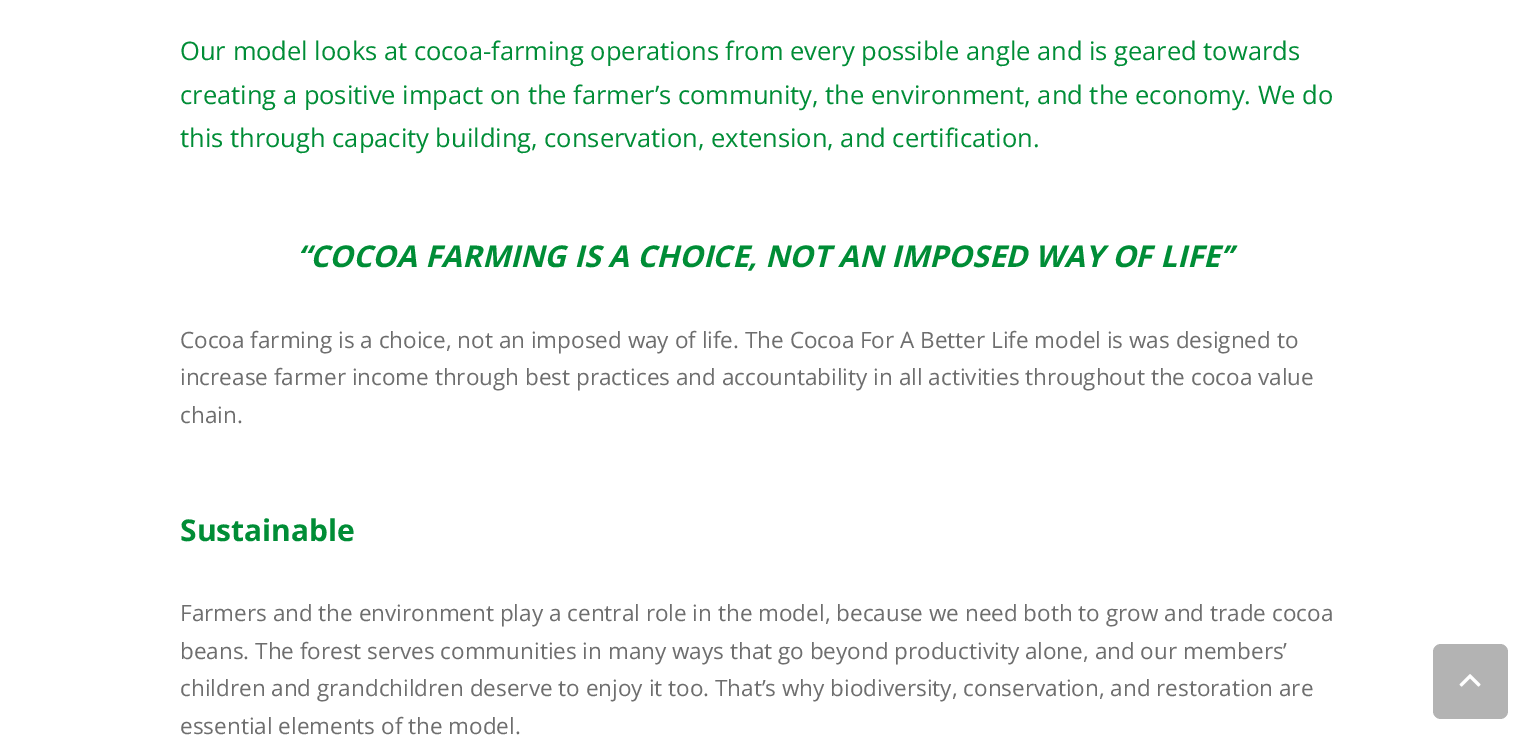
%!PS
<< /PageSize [1529 741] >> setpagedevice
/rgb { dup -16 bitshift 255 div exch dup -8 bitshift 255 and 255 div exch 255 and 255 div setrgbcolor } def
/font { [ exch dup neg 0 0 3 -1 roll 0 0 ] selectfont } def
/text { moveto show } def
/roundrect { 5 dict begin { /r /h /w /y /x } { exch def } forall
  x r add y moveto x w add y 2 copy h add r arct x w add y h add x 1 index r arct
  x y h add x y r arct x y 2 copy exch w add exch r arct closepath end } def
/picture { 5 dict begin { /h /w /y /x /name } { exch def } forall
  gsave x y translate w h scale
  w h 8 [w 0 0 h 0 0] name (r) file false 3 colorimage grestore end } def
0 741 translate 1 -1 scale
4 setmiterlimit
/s1 { /OpenSans-Regular 25.5 font 16#008D36 rgb } def
/s2 { /OpenSans-BoldItalic 30 font 16#008D36 rgb } def
/s3 { /OpenSans-Regular 22.5 font 16#6E6E6E rgb } def
/s4 { /OpenSans-Bold 30 font 16#008D36 rgb } def
16#FFFFFF rgb
0 0 1529 741 rectfill
s1
(Our model looks at cocoa-farming operations from every possible angle and is geared towards) 180 60 text
(creating a positive impact on the farmer’s community, the environment, and the economy. We do) 180 104 text
(this through capacity building, conservation, extension, and certification.) 180 147 text
s2
(“COCOA FARMING IS A CHOICE, NOT AN IMPOSED WAY OF LIFE’’) 297 267 text
s3
(Cocoa farming is a choice, not an imposed way of life. The Cocoa For A Better Life model is was designed to) 180 348 text
(increase farmer income through best practices and accountability in all activities throughout the cocoa value) 180 385 text
(chain.) 180 423 text
s4
(Sustainable) 180 541 text
s3
(Farmers and the environment play a central role in the model, because we need both to grow and trade cocoa) 180 621 text
(beans. The forest serves communities in many ways that go beyond productivity alone, and our members’) 180 659 text
(children and grandchildren deserve to enjoy it too. That’s why biodiversity, conservation, and restoration are) 180 696 text
(essential elements of the model.) 180 734 text
16#B3B3B3 rgb
1433 644 75 75 8 roundrect fill
(pic1.raw) 1459 674 22 13 picture
showpage
